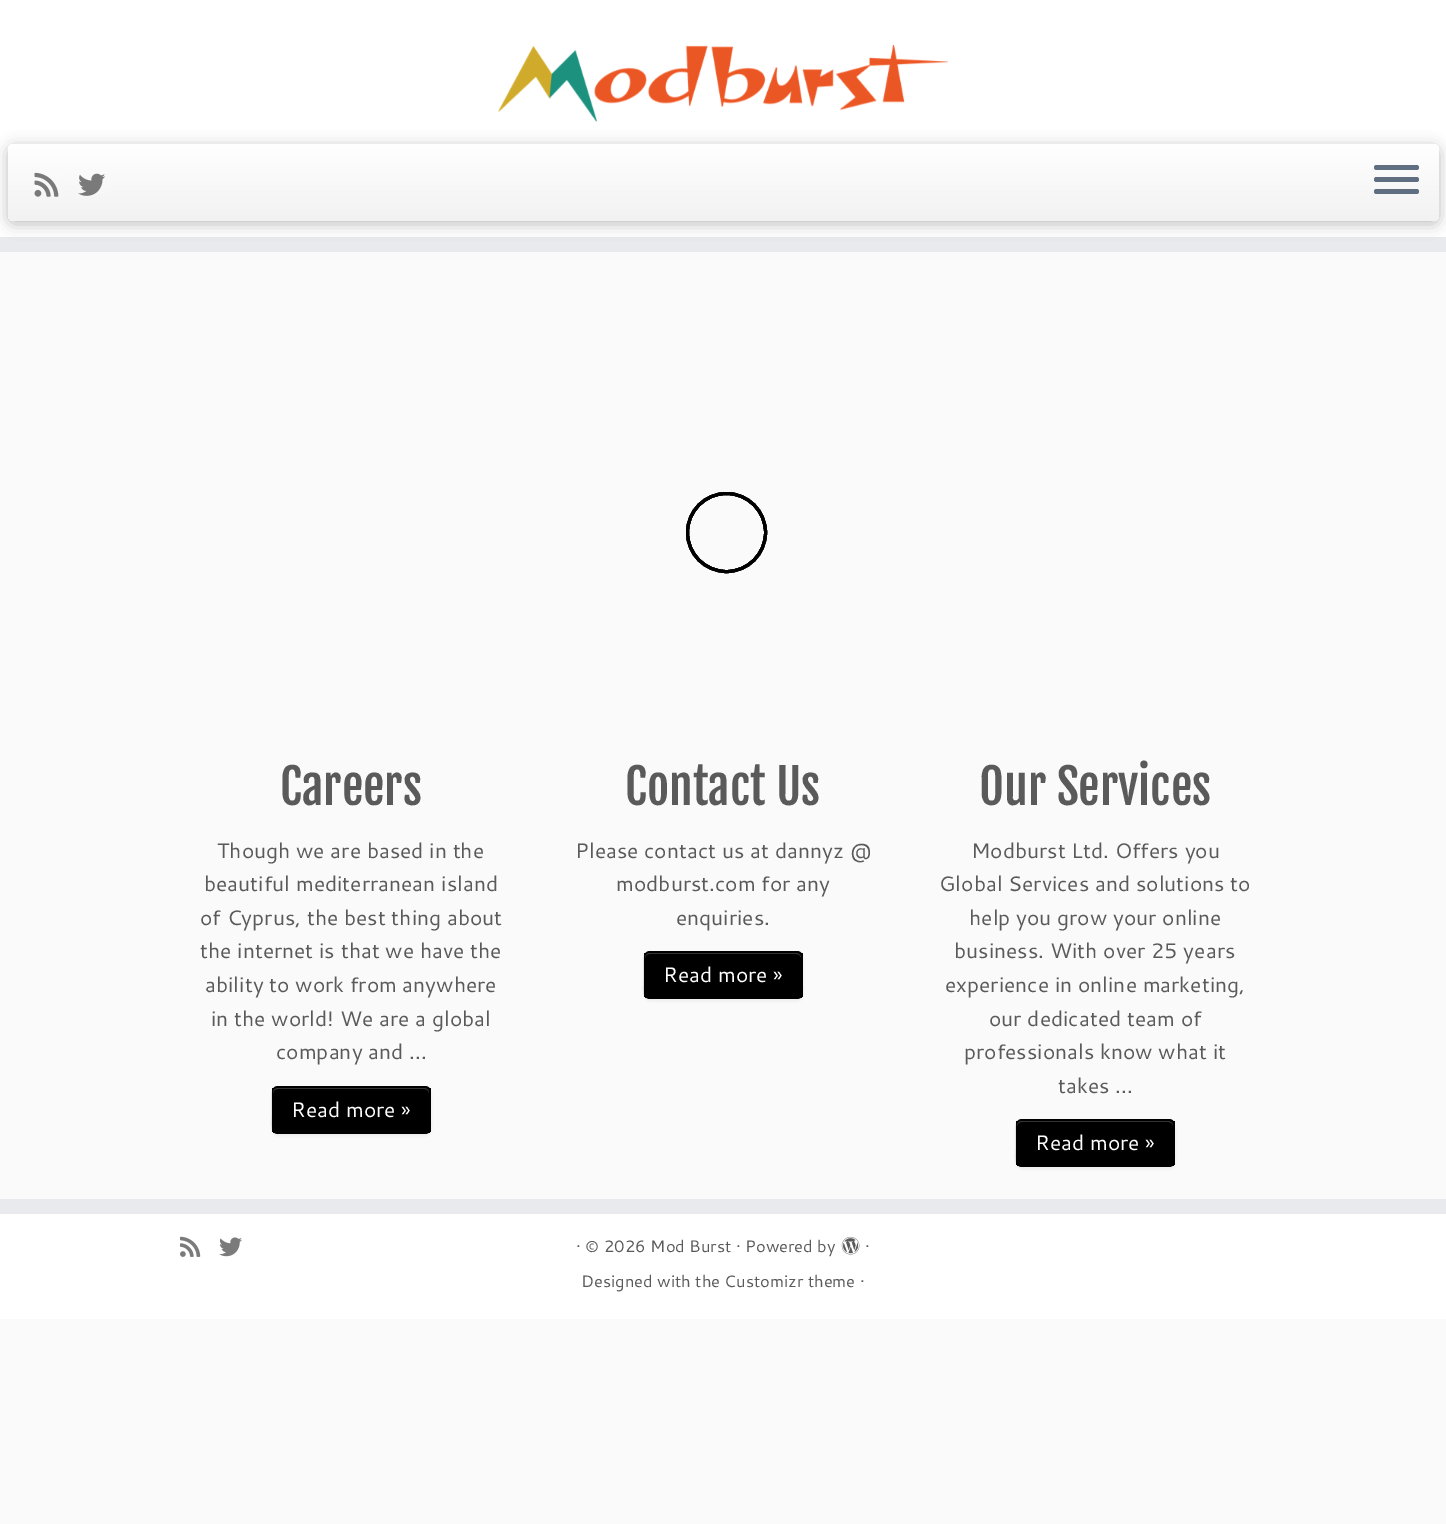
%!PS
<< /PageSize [1446 1524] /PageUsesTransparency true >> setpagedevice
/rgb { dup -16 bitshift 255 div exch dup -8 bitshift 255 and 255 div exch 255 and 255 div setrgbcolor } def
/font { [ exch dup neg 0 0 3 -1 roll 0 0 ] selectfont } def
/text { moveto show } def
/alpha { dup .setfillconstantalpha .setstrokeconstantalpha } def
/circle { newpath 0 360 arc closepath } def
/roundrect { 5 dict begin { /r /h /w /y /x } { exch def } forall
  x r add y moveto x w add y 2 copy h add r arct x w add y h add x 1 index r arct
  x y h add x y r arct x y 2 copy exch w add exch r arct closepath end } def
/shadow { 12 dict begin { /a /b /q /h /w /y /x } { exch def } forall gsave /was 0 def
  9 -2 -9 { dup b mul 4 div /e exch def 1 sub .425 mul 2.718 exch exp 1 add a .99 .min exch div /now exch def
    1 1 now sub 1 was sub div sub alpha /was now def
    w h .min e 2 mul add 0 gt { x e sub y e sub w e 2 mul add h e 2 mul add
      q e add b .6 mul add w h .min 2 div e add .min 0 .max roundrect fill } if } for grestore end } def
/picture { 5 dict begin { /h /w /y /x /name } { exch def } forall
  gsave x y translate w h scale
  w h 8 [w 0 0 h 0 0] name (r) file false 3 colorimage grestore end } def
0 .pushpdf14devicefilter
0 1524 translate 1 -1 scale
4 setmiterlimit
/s1 { /FjallaOne-Regular 48 font 16#5A5A5A rgb } def
/s2 { /Cantarell-Regular 21 font 16#5A5A5A rgb } def
/s3 { /Cantarell-Regular 21 font 16#FFFFFF rgb } def
/s4 { /Cantarell-Regular 16.5 font 16#5A5A5A rgb } def
16#FAFAFA rgb
0 0 1446 1524 rectfill
16#FFFFFF rgb
0 0 1446 237 rectfill
16#E9EAEE rgb
0 237 1446 15 rectfill
(pic1.raw) 498 45 450 77 picture
16#000000 rgb
8 147 1431 77 6 7.5 0.25 shadow
gsave 8 144 1431 77 6 roundrect clip newpath
<< /ShadingType 2 /ColorSpace /DeviceRGB /Coords [723 144 723 221] /Extend [true true] /Function << /FunctionType 2 /Domain [0 1] /C0 [1 1 1] /C1 [0.949 0.949 0.949] /N 1 >> >> shfill grestore
(pic2.raw) 34 172 25 25 picture
(pic3.raw) 78 173 28 23 picture
16#5F6F81 rgb
1374 165 45 5 2.5 roundrect fill
1374 177 45 5 2.5 roundrect fill
1374 189 45 5 2.5 roundrect fill
16#000000 rgb
3 setlinewidth
726.5 532.5 39 circle stroke
726.5 532.5 39 circle stroke
726.5 532.5 39 circle stroke
s1
(Careers) 280 805 text
s2
(Though we are based in the) 217 858 text
(beautiful mediterranean island) 204 891 text
(of Cyprus, the best thing about) 200 925 text
(the internet is that we have the) 200 958 text
(ability to work from anywhere) 205 992 text
(in the world! We are a global) 211 1026 text
(company and ...) 276 1059 text
16#000000 rgb
272 1088 159 48 6 1.5 0.05 shadow
272 1086 159 48 6 roundrect fill
gsave
272 1086 159 48 6 roundrect clip newpath
272 1088 159 45 rectfill
grestore
16#333333 rgb
278 1089 moveto 424 1089 lineto 427 1089 429 1091 429 1094 curveto 429 1093 lineto 429 1090 427 1088 424 1088 curveto 278 1088 lineto 275 1088 273 1090 273 1093 curveto 273 1094 lineto 273 1091 275 1089 278 1089 curveto closepath fill
0.25 alpha
16#000000 rgb
1.5 setlinewidth
428 1131.5 moveto 427 1132.5 426 1133 424.5 1133 curveto 277.5 1133 lineto 276 1133 275 1132.5 274 1131.5 curveto stroke
0.1 alpha
274 1131.5 moveto 270.5 1128.5 272 1119.5 272 1116 curveto 272 1098 lineto 272 1094 271.5 1087 277.5 1087 curveto 424.5 1087 lineto 430.5 1087 430 1094 430 1098 curveto 430 1116 lineto 430 1119.5 431.5 1128.5 428 1131.5 curveto stroke
1 alpha
s3
(Read more ») 291 1117 text
s1
(Contact Us) 625 805 text
s2
(Please contact us at dannyz @) 575 858 text
(modburst.com for any) 616 891 text
(enquiries.) 676 925 text
16#000000 rgb
644 953 159 48 6 1.5 0.05 shadow
644 951 159 48 6 roundrect fill
gsave
644 951 159 48 6 roundrect clip newpath
644 953 159 45 rectfill
grestore
16#333333 rgb
650 954 moveto 796 954 lineto 799 954 801 956 801 958 curveto 801 955 799 953 796 953 curveto 650 953 lineto 647 953 645 955 645 958 curveto 645 956 647 954 650 954 curveto closepath fill
0.25 alpha
16#000000 rgb
800 996.5 moveto 799 997.5 798 998 796.5 998 curveto 649.5 998 lineto 648 998 647 997.5 646 996.5 curveto stroke
0.1 alpha
646 996.5 moveto 642.5 993.5 644 984.5 644 981 curveto 644 963 lineto 644 959 643.5 952 649.5 952 curveto 796.5 952 lineto 802.5 952 802 959 802 963 curveto 802 981 lineto 802 984.5 803.5 993.5 800 996.5 curveto stroke
1 alpha
s3
(Read more ») 663 982 text
s1
(Our Services) 979 805 text
s2
(Modburst Ltd. Offers you) 971 858 text
(Global Services and solutions to) 939 891 text
(help you grow your online) 969 925 text
(business. With over 25 years) 954 958 text
(experience in online marketing,) 945 992 text
(our dedicated team of) 989 1026 text
(professionals know what it) 964 1059 text
(takes ...) 1058 1093 text
16#000000 rgb
1016 1121 159 48 6 1.5 0.05 shadow
1016 1119 159 48 6 roundrect fill
gsave
1016 1119 159 48 6 roundrect clip newpath
1016 1121 159 45 rectfill
grestore
16#333333 rgb
1022 1122 moveto 1168 1122 lineto 1171 1122 1173 1124 1173 1126 curveto 1173 1123 1171 1121 1168 1121 curveto 1022 1121 lineto 1019 1121 1017 1123 1017 1126 curveto 1017 1124 1019 1122 1022 1122 curveto closepath fill
0.25 alpha
16#000000 rgb
1172 1164.5 moveto 1171 1165.5 1170 1166 1168.5 1166 curveto 1021.5 1166 lineto 1020 1166 1019 1165.5 1018 1164.5 curveto stroke
0.1 alpha
1018 1164.5 moveto 1014.5 1161.5 1016 1152.5 1016 1149 curveto 1016 1131 lineto 1016 1127 1015.5 1120 1021.5 1120 curveto 1168.5 1120 lineto 1174.5 1120 1174 1127 1174 1131 curveto 1174 1149 lineto 1174 1152.5 1175.5 1161.5 1172 1164.5 curveto stroke
1 alpha
s3
(Read more ») 1035 1150 text
16#E9EAEE rgb
0 1199 1446 15 rectfill
16#FFFFFF rgb
0 1214 1446 105 rectfill
(pic4.raw) 180 1236 21 21 picture
(pic5.raw) 219 1237 23 20 picture
s4
(· © 2026 Mod Burst · Powered by) 576 1252 text
(pic6.raw) 841 1236 19 19 picture
(·) 865 1252 text
(Designed with the Customizr theme ·) 581 1287 text
.poppdf14devicefilter showpage
